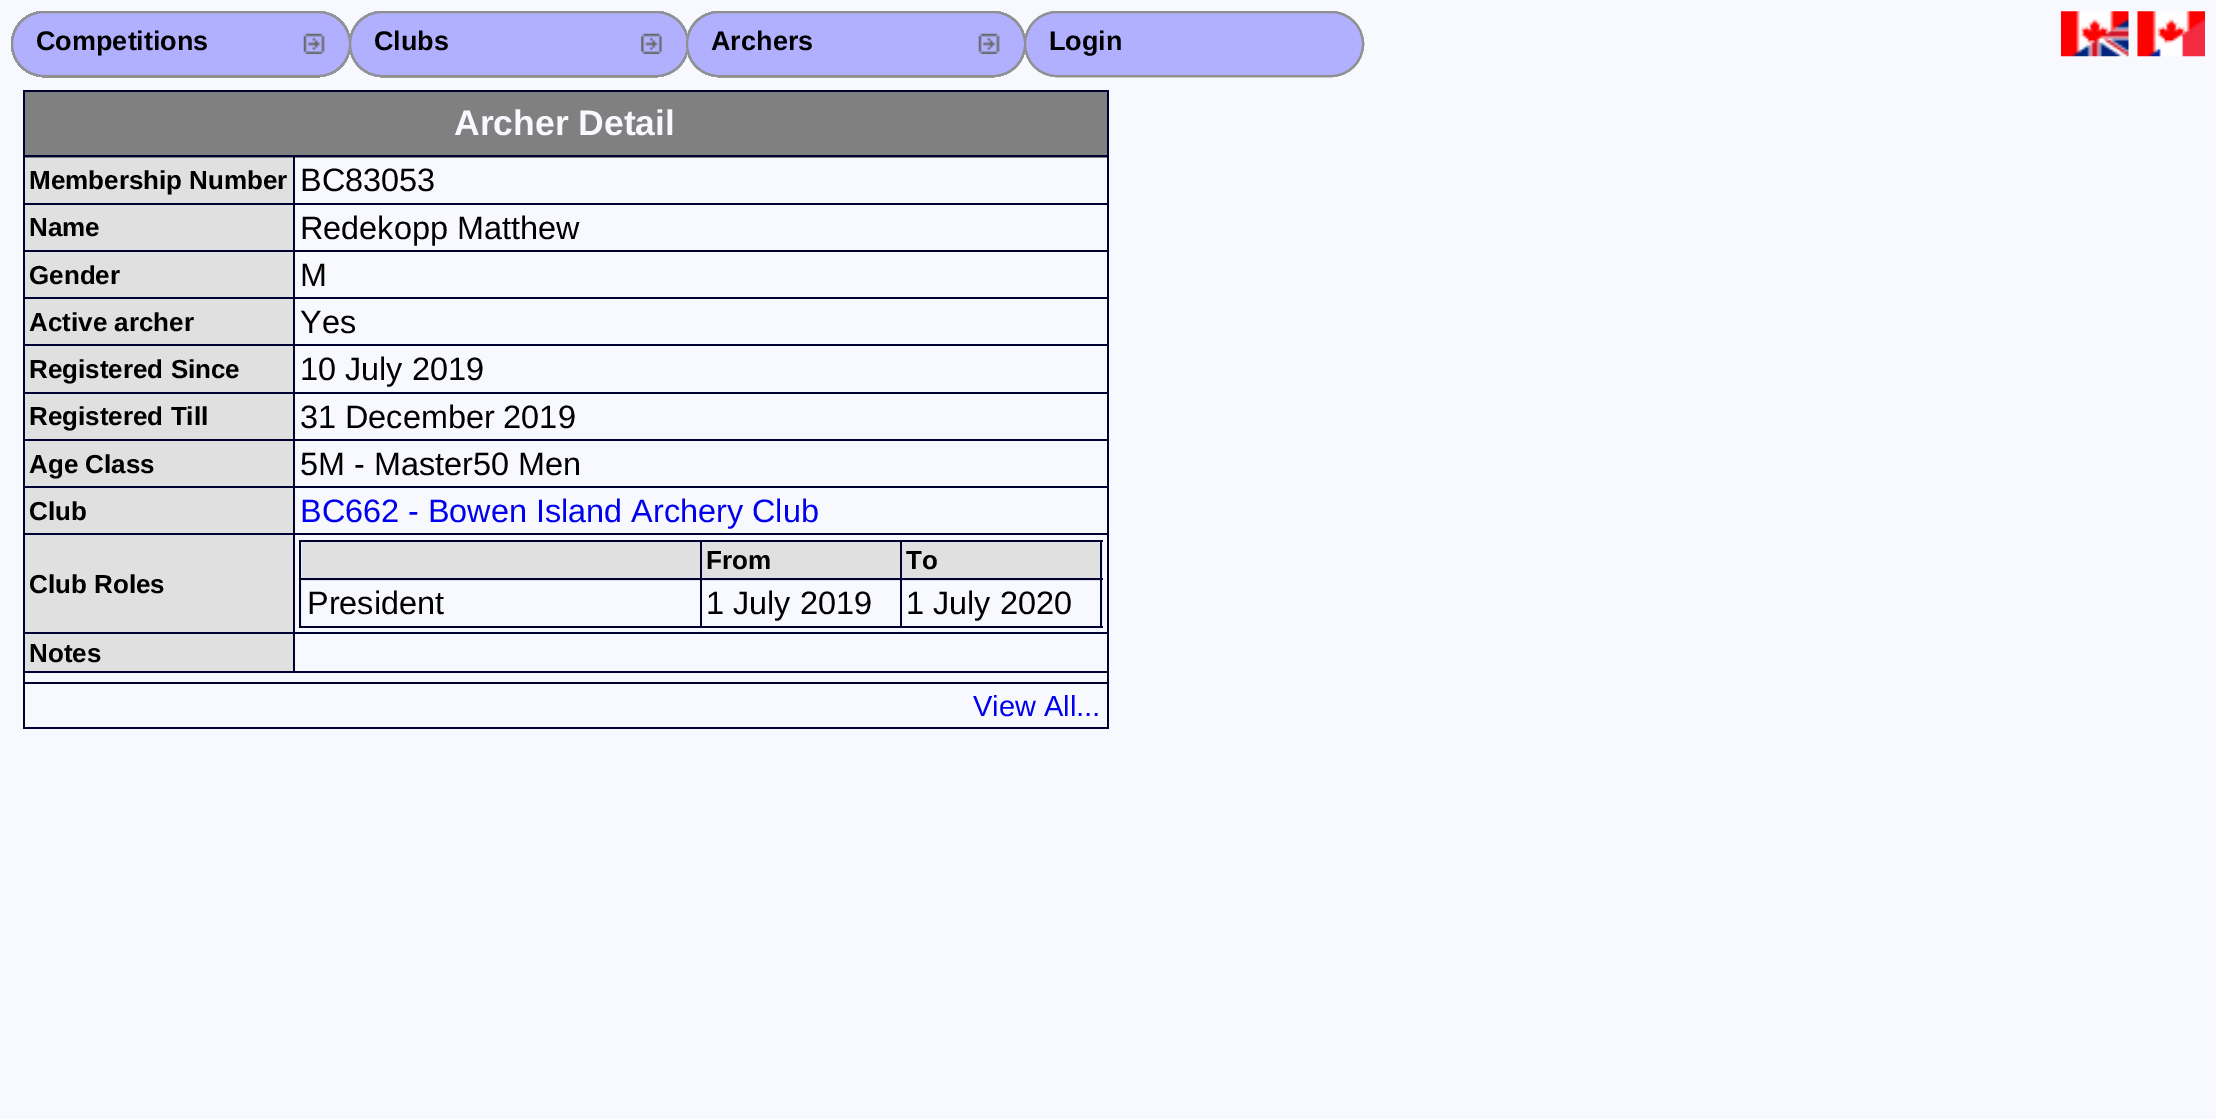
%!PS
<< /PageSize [2216 1119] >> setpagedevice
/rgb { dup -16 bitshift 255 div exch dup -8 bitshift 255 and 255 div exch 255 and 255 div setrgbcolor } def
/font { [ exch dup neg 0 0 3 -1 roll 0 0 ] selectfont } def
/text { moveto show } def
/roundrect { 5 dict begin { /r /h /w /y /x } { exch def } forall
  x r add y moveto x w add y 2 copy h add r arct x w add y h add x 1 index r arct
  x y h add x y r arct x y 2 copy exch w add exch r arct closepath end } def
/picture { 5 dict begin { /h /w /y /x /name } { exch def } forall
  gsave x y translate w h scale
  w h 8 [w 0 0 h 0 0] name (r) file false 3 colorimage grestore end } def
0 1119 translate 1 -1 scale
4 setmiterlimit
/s1 { /LiberationSans-Bold 27 font 16#000000 rgb } def
/s2 { /LiberationSans-Bold 35.5 font 16#F8F8FF rgb } def
/s3 { /LiberationSans-Bold 26 font 16#000000 rgb } def
/s4 { /LiberationSans-Regular 32.4 font 16#000000 rgb } def
/s5 { /LiberationSans-Regular 32.4 font 16#0000EE rgb } def
/s6 { /LiberationSans-Regular 29 font 16#0000EE rgb } def
16#F8F8FF rgb
0 0 2216 1119 rectfill
16#909090 rgb
2 setlinewidth
12 12 338 64 32 roundrect stroke
350 12 338 64 32 roundrect stroke
12 12 338 64 32 roundrect stroke
12 12 338 64 32 roundrect stroke
12 12 338 64 32 roundrect stroke
12 12 338 64 32 roundrect stroke
12 12 338 64 32 roundrect stroke
12 12 338 64 32 roundrect stroke
12 12 338 64 32 roundrect stroke
12 12 338 64 32 roundrect stroke
12 12 338 64 32 roundrect stroke
12 12 338 64 32 roundrect stroke
12 12 338 64 32 roundrect stroke
12 12 338 64 32 roundrect stroke
12 12 338 64 32 roundrect stroke
12 12 338 64 32 roundrect stroke
16#B0B0FF rgb
11 11 340 66 33 roundrect fill
(pic1.raw) 303 33 22 21 picture
16#909090 rgb
12 12 338 64 32 roundrect stroke
s1
(Competitions) 36 50 text
16#909090 rgb
687 12 338 64 32 roundrect stroke
350 12 338 64 32 roundrect stroke
350 12 338 64 32 roundrect stroke
350 12 338 64 32 roundrect stroke
350 12 338 64 32 roundrect stroke
350 12 338 64 32 roundrect stroke
16#B0B0FF rgb
349 11 340 66 33 roundrect fill
(pic2.raw) 641 33 22 21 picture
16#909090 rgb
350 12 338 64 32 roundrect stroke
s1
(Clubs) 374 50 text
16#909090 rgb
1025 12 338 64 32 roundrect stroke
687 12 338 64 32 roundrect stroke
687 12 338 64 32 roundrect stroke
687 12 338 64 32 roundrect stroke
687 12 338 64 32 roundrect stroke
687 12 338 64 32 roundrect stroke
16#B0B0FF rgb
686 11 340 66 33 roundrect fill
(pic3.raw) 978 33 22 21 picture
16#909090 rgb
687 12 338 64 32 roundrect stroke
s1
(Archers) 711 50 text
16#B0B0FF rgb
1025 12 338 64 32 roundrect gsave fill grestore
16#909090 rgb
stroke
s1
(Login) 1049 50 text
(pic4.raw) 2061 11 68 46 picture
(pic5.raw) 2137 11 68 46 picture
16#000033 rgb
23 90 1086 2 rectfill
1107 90 2 639 rectfill
23 727 1086 2 rectfill
23 90 2 639 rectfill
16#808080 rgb
25 92 1082 66 rectfill
s2
(Archer Detail) 454 135 text
16#E0E0E0 rgb
25 158 268 45 rectfill
16#000033 rgb
293 155 816 2 rectfill
293 203 816 2 rectfill
293 250 816 2 rectfill
293 297 816 2 rectfill
16#E0E0E0 rgb
25 299 268 93 rectfill
16#000033 rgb
293 344 816 2 rectfill
293 392 816 2 rectfill
293 439 816 2 rectfill
293 486 816 2 rectfill
16#E0E0E0 rgb
25 488 268 183 rectfill
16#000033 rgb
293 533 816 2 rectfill
293 632 816 2 rectfill
23 671 1086 2 rectfill
293 632 2 41 rectfill
23 632 272 2 rectfill
293 533 2 102 rectfill
23 533 272 2 rectfill
293 486 2 50 rectfill
23 486 272 2 rectfill
293 439 2 49 rectfill
23 439 272 2 rectfill
293 392 2 49 rectfill
23 392 272 2 rectfill
293 344 2 50 rectfill
23 344 272 2 rectfill
293 297 2 50 rectfill
23 297 272 2 rectfill
293 250 2 49 rectfill
23 250 272 2 rectfill
293 203 2 49 rectfill
23 203 272 2 rectfill
293 155 2 50 rectfill
23 155 272 2 rectfill
s3
(Membership Number) 29 189 text
s4
(BC83053) 300 191 text
16#E0E0E0 rgb
25 205 268 45 rectfill
s3
(Name) 29 236 text
s4
(Redekopp Matthew) 300 239 text
16#E0E0E0 rgb
25 252 268 45 rectfill
s3
(Gender) 29 284 text
s4
(M) 300 286 text
s3
(Active archer) 29 331 text
s4
(Yes) 300 333 text
s3
(Registered Since) 29 378 text
s4
(10 July 2019) 300 380 text
16#E0E0E0 rgb
25 394 268 45 rectfill
s3
(Registered Till) 29 425 text
s4
(31 December 2019) 300 428 text
16#E0E0E0 rgb
25 441 268 45 rectfill
s3
(Age Class) 29 473 text
s4
(5M - Master50 Men) 300 475 text
s3
(Club) 29 520 text
s5
(BC662 - Bowen Island Archery Club) 300 522 text
s3
(Club Roles) 29 593 text
16#E0F0FF rgb
301 542 802 84 rectfill
16#000033 rgb
299 540 804 2 rectfill
1100 540 2 88 rectfill
299 626 804 2 rectfill
299 540 2 88 rectfill
16#E0E0E0 rgb
302 542 398 39 rectfill
702 542 198 39 rectfill
902 542 198 39 rectfill
16#000033 rgb
900 578 203 2 rectfill
16#F8F8FF rgb
302 581 798 45 rectfill
16#000033 rgb
900 578 2 50 rectfill
700 578 202 2 rectfill
700 578 2 50 rectfill
299 578 403 2 rectfill
700 540 2 41 rectfill
s3
(From) 706 569 text
16#000033 rgb
900 540 2 41 rectfill
s3
(To) 906 569 text
s4
(President) 307 614 text
(1 July 2019) 706 614 text
(1 July 2020) 906 614 text
s3
(Notes) 29 662 text
16#000033 rgb
23 682 1086 2 rectfill
s6
(View All...) 973 716 text
showpage
